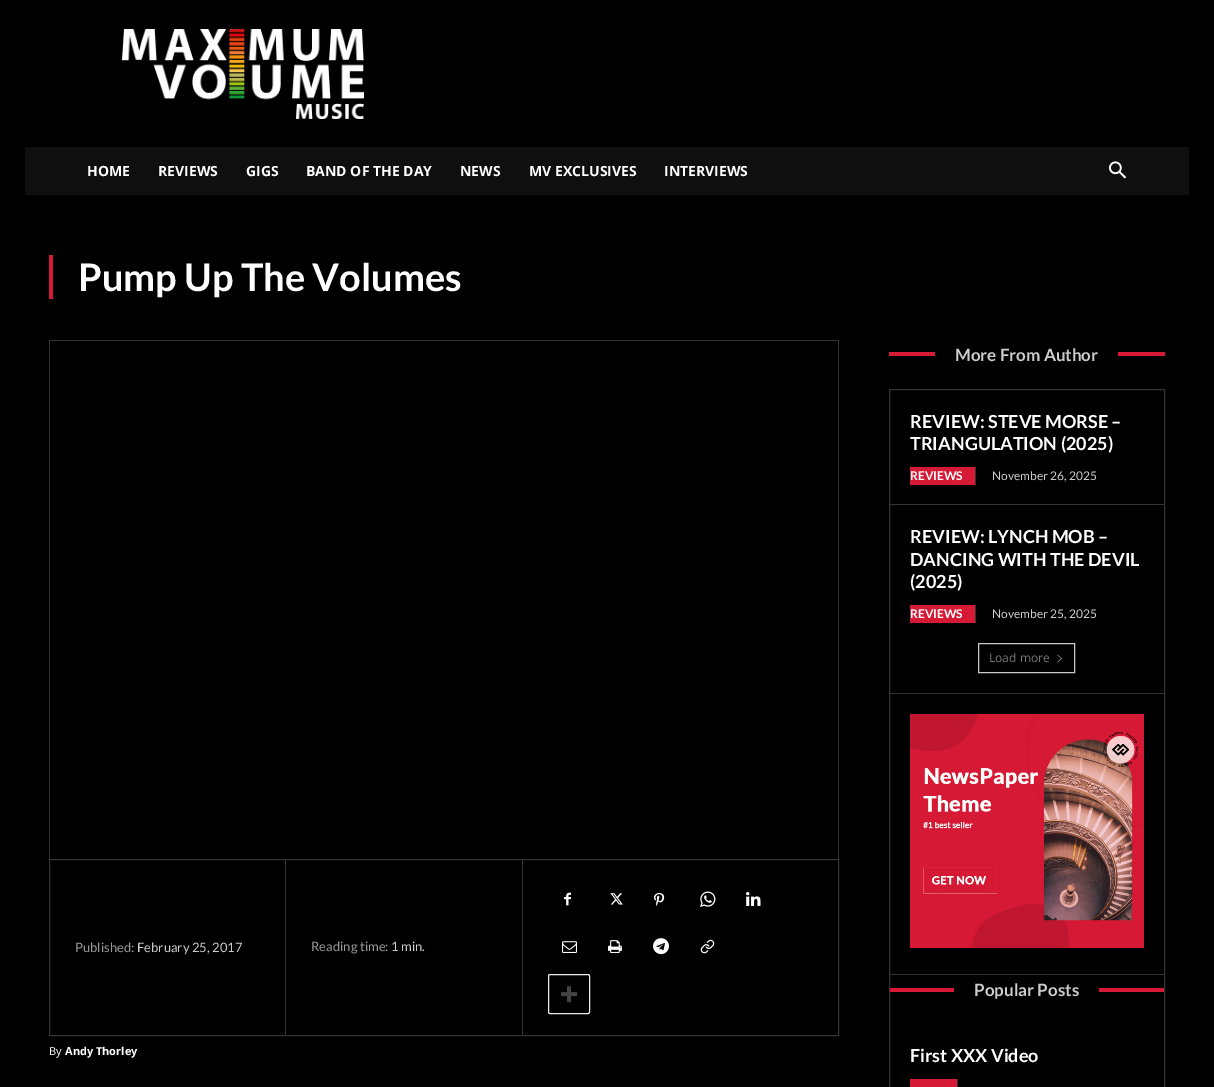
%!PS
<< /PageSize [1214 1087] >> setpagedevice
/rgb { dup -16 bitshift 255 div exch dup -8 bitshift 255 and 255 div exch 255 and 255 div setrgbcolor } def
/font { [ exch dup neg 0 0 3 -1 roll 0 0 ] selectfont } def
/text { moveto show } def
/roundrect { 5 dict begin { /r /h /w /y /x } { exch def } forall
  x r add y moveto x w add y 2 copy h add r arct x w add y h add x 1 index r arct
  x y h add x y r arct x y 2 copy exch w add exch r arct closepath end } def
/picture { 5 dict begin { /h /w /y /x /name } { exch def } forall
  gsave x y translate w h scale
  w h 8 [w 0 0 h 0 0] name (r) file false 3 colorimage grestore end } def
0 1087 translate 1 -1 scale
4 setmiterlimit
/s1 { /OpenSans-Bold 14 font 16#FFFFFF rgb } def
/s2 { /Lato-Bold 38 font 16#FFFFFF rgb } def
/s3 { /Lato-Regular 13 font 16#999999 rgb } def
/s4 { /Lato-Regular 13 font 16#CCCCCC rgb } def
/s5 { /OpenSans-Regular 11 font 16#FFFFFF rgb } def
/s6 { /OpenSans-Bold 11 font 16#FFFFFF rgb } def
/s7 { /Lato-Bold 17 font 16#CCCCCC rgb } def
/s8 { /Lato-Bold 18 font 16#FFFFFF rgb } def
/s9 { /Lato-Bold 12 font 16#FFFFFF rgb } def
/s10 { /Lato-Regular 12 font 16#CCCCCC rgb } def
/s11 { /OpenSans-Regular 12 font 16#767676 rgb } def
16#000000 rgb
0 0 1214 1087 rectfill
(pic1.raw) 122 29 242 90 picture
16#0F0F0F rgb
25 147 1164 48 rectfill
s1
(HOME) 87 176 text
(REVIEWS) 158 176 text
(GIGS) 246 176 text
(BAND OF THE DAY) 306 176 text
(NEWS) 460 176 text
(MV EXCLUSIVES) 529 176 text
(INTERVIEWS) 664 176 text
(pic2.raw) 1109 161 17 18 picture
16#D61935 rgb
49 255 4 44 rectfill
s2
(Pump Up The Volumes) 78 291 text
16#333333 rgb
49 340 790 1 rectfill
838 340 1 519 rectfill
49 340 1 519 rectfill
49.5 859.5 789 176 rectstroke
285 860 1 175 rectfill
s3
(Published:) 75 952 text
s4
(February 25, 2017) 137 952 text
16#333333 rgb
522 860 1 175 rectfill
s3
(Reading time:) 311 951 text
s4
(1 min.) 391 951 text
(pic3.raw) 564 892 7 14 picture
(pic4.raw) 610 893 13 12 picture
(pic5.raw) 654 892 11 14 picture
(pic6.raw) 700 891 16 16 picture
(pic7.raw) 746 892 15 14 picture
(pic8.raw) 562 941 15 12 picture
(pic9.raw) 608 940 14 13 picture
(pic10.raw) 653 938 16 17 picture
(pic11.raw) 700 939 15 15 picture
16#E9E9E9 rgb
548.5 974.5 41 39 1.5 roundrect stroke
(pic12.raw) 561 986 16 17 picture
s5
(By) 49 1055 text
s6
(Andy Thorley) 65 1055 text
16#D61935 rgb
889 352 46 4 rectfill
s7
(More From Author) 955 361 text
16#D61935 rgb
1118 352 47 4 rectfill
16#333333 rgb
889.5 389.5 275 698 rectstroke
s8
(REVIEW: STEVE MORSE –) 910 428 text
(TRIANGULATION \(2025\)) 910 450 text
16#D61935 rgb
910 467 65 18 rectfill
16#333333 rgb
975 467 1 18 rectfill
s9
(REVIEWS) 910 480 text
s10
(November 26, 2025) 992 480 text
16#333333 rgb
890 504 274 1 rectfill
s8
(REVIEW: LYNCH MOB –) 910 543 text
(DANCING WITH THE DEVIL) 910 566 text
(\(2025\)) 910 588 text
16#D61935 rgb
910 605 65 18 rectfill
16#333333 rgb
975 605 1 18 rectfill
s9
(REVIEWS) 910 618 text
s10
(November 25, 2025) 992 618 text
16#C9C9C9 rgb
978.5 643.5 96 29 rectstroke
s11
(Load more) 989 662 text
(pic13.raw) 1057 654 6 9 picture
16#333333 rgb
890 693 274 1 rectfill
890 974 274 1 rectfill
(pic14.raw) 910 714 234 234 picture
16#D61935 rgb
890 988 64 4 rectfill
s7
(Popular Posts) 974 996 text
16#D61935 rgb
1099 988 65 4 rectfill
s8
(First XXX Video) 910 1062 text
16#D61935 rgb
910 1079 47 8 rectfill
16#333333 rgb
957 1079 1 8 rectfill
showpage
